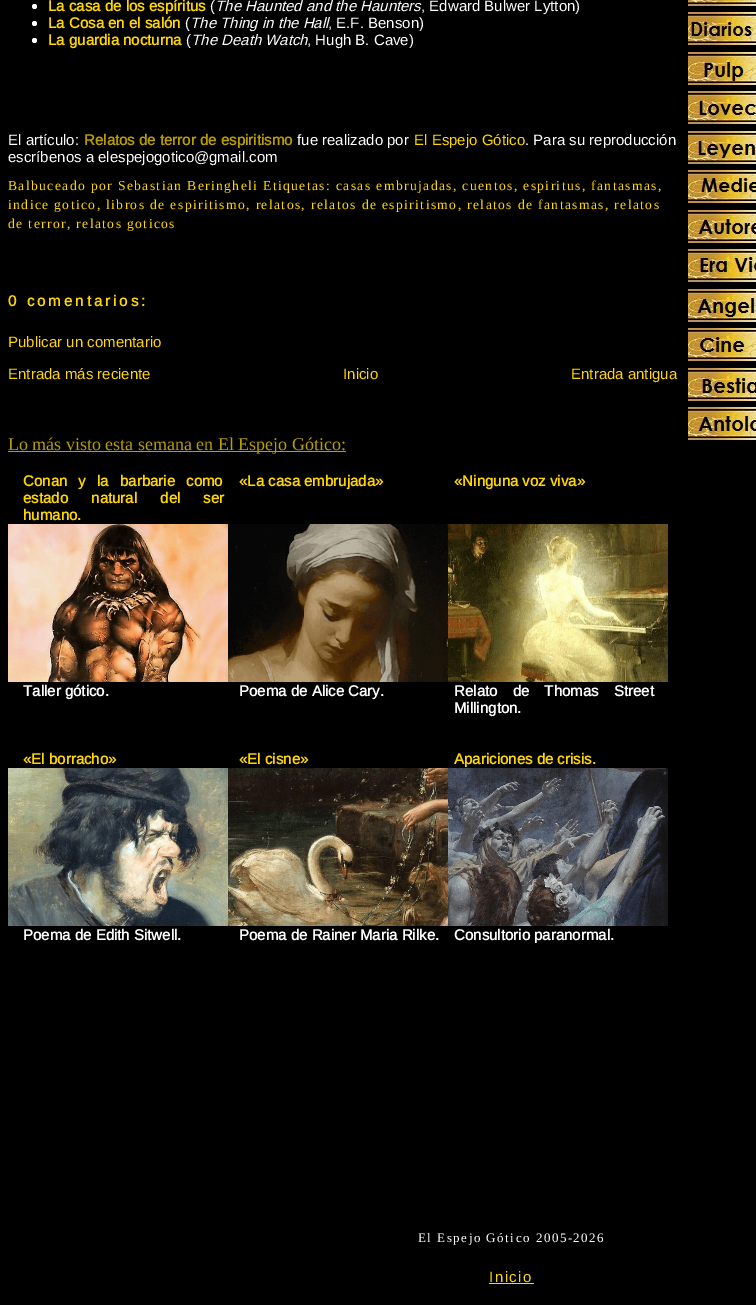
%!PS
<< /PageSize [756 1305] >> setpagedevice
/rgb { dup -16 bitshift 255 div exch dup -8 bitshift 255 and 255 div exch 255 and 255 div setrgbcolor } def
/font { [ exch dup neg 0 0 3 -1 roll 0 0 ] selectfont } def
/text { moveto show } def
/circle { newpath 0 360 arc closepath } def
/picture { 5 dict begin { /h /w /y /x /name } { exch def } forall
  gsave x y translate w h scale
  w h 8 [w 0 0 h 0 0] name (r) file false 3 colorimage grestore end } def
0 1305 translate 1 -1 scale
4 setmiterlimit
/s1 { /Arimo-Bold 15 font 16#FFD700 rgb } def
/s2 { /Arimo-Regular 15 font 16#FFFFFF rgb } def
/s3 { /Arimo-Italic 15 font 16#FFFFFF rgb } def
/s4 { /Arimo-Bold 15 font 16#B99D00 rgb } def
/s5 { /Arimo-Regular 15 font 16#FFD700 rgb } def
/s6 { /LiberationSerif-Regular 18 font 16#B99D00 rgb } def
/s7 { /Arimo-Bold 15 font 16#FFFFFF rgb } def
16#000000 rgb
0 0 756 1305 rectfill
16#FFFFFF rgb
34.5 6.5 2.5 circle fill
s1
(La casa de los espíritus) 48 11 text
s2
(\() 210 11 text
s3
(The Haunted and the Haunters) 215 11 text
s2
(, Edward Bulwer Lytton\)) 421 11 text
34.5 23.5 2.5 circle fill
s1
(La Cosa en el salón) 48 28 text
s2
(\() 185 28 text
s3
(The Thing in the Hall) 190 28 text
s2
(, E.F. Benson\)) 328 28 text
34.5 40.5 2.5 circle fill
s1
(La guardia nocturna) 48 45 text
s2
(\() 186 45 text
s3
(The Death Watch) 191 45 text
s2
(, Hugh B. Cave\)) 307 45 text
(El artículo:) 8 145 text
s4
(Relatos de terror de espiritismo) 84 145 text
s2
(fue realizado por) 297 145 text
s5
(El Espejo Gótico) 414 145 text
s2
(. Para su reproducción) 525 145 text
(escríbenos a elespejogotico@gmail.com) 8 162 text
/LiberationSerif-Regular 13.65 font
16#FFD700 rgb
8 190 moveto 1.36 0 (Balbuceado por Sebastian Beringheli Etiquetas: casas embrujadas, cuentos, espiritus, fantasmas,) ashow
8 209 moveto 1.36 0 (indice gotico, libros de espiritismo, relatos, relatos de espiritismo, relatos de fantasmas, relatos) ashow
8 228 moveto 1.36 0 (de terror, relatos goticos) ashow
/Arimo-Bold 15 font
8 306 moveto 3 0 (0 comentarios:) ashow
s5
(Publicar un comentario) 8 347 text
(Entrada más reciente) 8 379 text
(Inicio) 343 379 text
(Entrada antigua) 571 379 text
16#B99D00 rgb
8 451 338 1 rectfill
s6
(Lo más visto esta semana en El Espejo Gótico:) 8 450 text
/Arimo-Bold 15 font
16#FFD700 rgb
23 486 moveto 7 0 32 (Conan y la barbarie como) widthshow
23 503 moveto 19 0 32 (estado natural del ser) widthshow
(humano.) 23 520 text
(«La casa embrujada») 239 486 text
(«Ninguna voz viva») 454 486 text
(pic1.raw) 8 524 220 158 picture
(pic2.raw) 228 524 220 158 picture
(pic3.raw) 448 524 220 158 picture
s7
(Taller gótico.) 23 696 text
(Poema de Alice Cary.) 239 696 text
454 696 moveto 11 0 32 (Relato de Thomas Street) widthshow
(Millington.) 454 713 text
s1
(«El borracho») 23 764 text
(«El cisne») 239 764 text
(Apariciones de crisis.) 454 764 text
(pic4.raw) 8 768 220 158 picture
(pic5.raw) 228 768 220 158 picture
(pic6.raw) 448 768 220 158 picture
s7
(Poema de Edith Sitwell.) 23 940 text
(Poema de Rainer Maria Rilke.) 239 940 text
(Consultorio paranormal.) 454 940 text
(pic7.raw) 688 0 68 6 picture
(pic8.raw) 688 12 68 33 picture
(pic9.raw) 688 52 68 33 picture
(pic10.raw) 688 91 68 33 picture
(pic11.raw) 688 131 68 33 picture
(pic12.raw) 688 170 68 33 picture
(pic13.raw) 688 210 68 33 picture
(pic14.raw) 688 249 68 33 picture
(pic15.raw) 688 289 68 33 picture
(pic16.raw) 688 328 68 33 picture
(pic17.raw) 688 368 68 33 picture
(pic18.raw) 688 407 68 33 picture
/LiberationSerif-Regular 13 font
418 1242 moveto 1.5 0 (El Espejo Gótico 2005-2026) ashow
/Arimo-Regular 15 font
16#FFD700 rgb
489 1282 moveto 1.5 0 (Inicio) ashow
489 1283 45 1 rectfill
showpage
